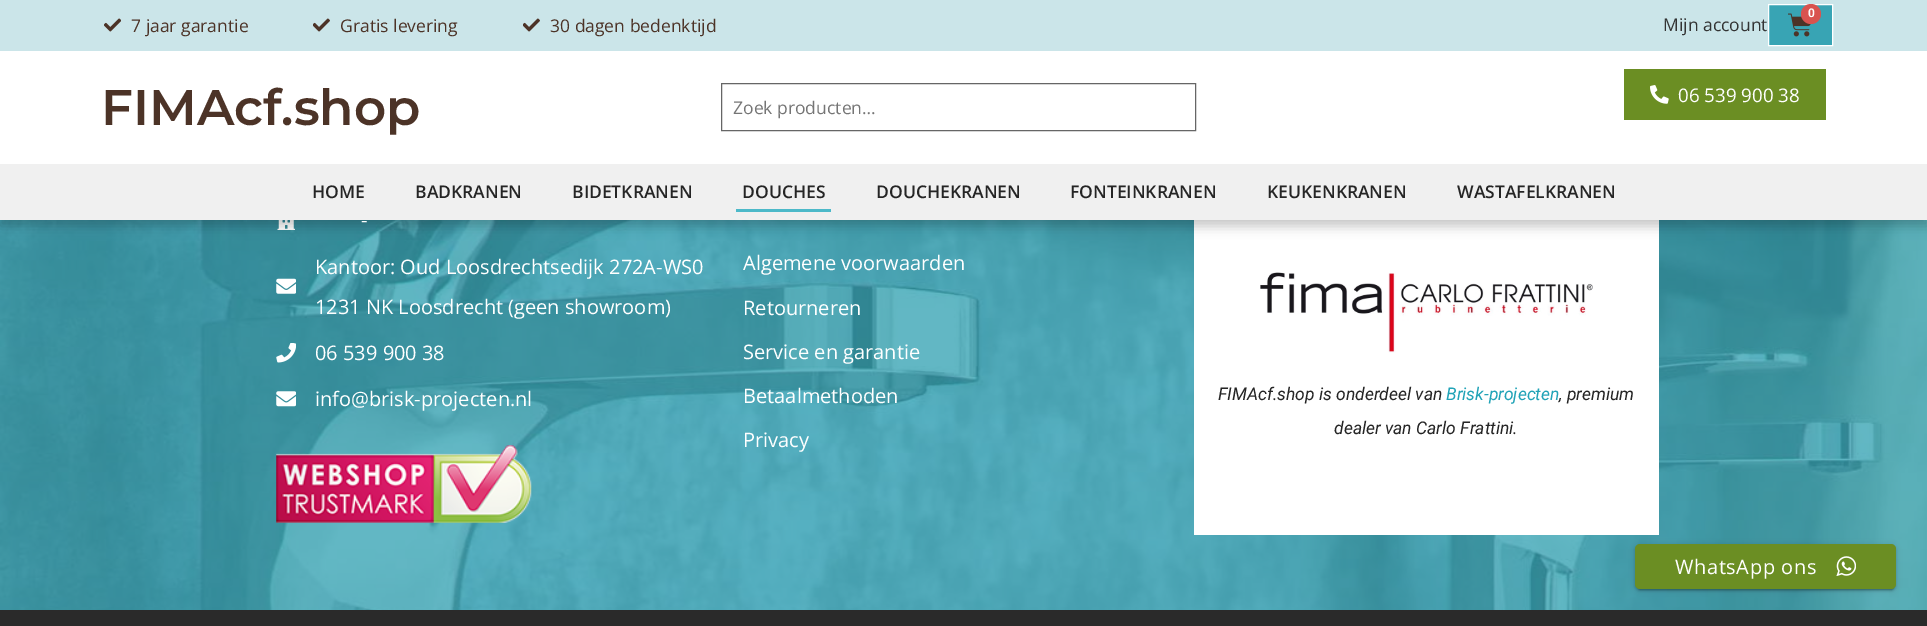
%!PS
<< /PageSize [1927 626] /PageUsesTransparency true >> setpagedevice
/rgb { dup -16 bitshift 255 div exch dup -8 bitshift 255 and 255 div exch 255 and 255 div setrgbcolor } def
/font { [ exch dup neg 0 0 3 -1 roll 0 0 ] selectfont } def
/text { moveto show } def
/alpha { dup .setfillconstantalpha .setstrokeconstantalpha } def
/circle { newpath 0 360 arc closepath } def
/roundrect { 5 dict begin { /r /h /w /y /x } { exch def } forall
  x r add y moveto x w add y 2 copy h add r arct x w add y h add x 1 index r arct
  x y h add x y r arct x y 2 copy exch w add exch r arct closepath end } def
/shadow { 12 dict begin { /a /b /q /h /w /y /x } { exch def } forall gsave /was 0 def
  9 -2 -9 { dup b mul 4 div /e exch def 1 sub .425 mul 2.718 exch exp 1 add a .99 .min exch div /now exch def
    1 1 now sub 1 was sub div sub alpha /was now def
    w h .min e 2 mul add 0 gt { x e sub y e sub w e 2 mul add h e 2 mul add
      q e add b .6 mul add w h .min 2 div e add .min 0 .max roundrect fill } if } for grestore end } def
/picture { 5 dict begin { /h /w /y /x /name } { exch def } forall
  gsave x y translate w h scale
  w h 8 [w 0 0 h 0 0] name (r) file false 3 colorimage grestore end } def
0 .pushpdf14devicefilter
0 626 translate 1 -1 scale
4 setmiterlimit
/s1 { /OpenSans-Regular 17.5 font 16#4C3327 rgb } def
/s2 { /Roboto-SemiBold 12 font 16#FFFFFF rgb } def
/s3 { /OpenSans-Regular 17.5 font 16#333333 rgb } def
/s4 { /Montserrat-SemiBold 50 font 16#4C3327 rgb } def
/s5 { /OpenSans-Regular 18.75 font 16#FFFFFF rgb } def
/s6 { /OpenSans-Regular 17.5 font 16#757575 rgb } def
/s7 { /OpenSans-SemiBold 17.5 font 16#252525 rgb } def
/s8 { /OpenSans-Regular 20 font 16#FFFFFF rgb } def
/s9 { /Roboto-Italic 17.5 font 16#252525 rgb } def
/s10 { /Roboto-Italic 17.5 font 16#21A3B7 rgb } def
16#FFFFFF rgb
0 0 1927 626 rectfill
(pic5.raw) 0 220 1927 390 picture
(pic6.raw) 277 220 18 10 picture
1194 220 465 315 rectfill
16#000000 rgb
0 6 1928 220 0 6 0.23 shadow
16#CBE5E9 rgb
0 0 1927 51 rectfill
(pic1.raw) 104 18 17 14 picture
s1
(7 jaar garantie) 131 32 text
(pic2.raw) 313 18 17 14 picture
(Gratis levering) 340 32 text
(pic2.raw) 523 18 17 14 picture
(30 dagen bedenktijd) 550 32 text
16#38A4B4 rgb
1768.5 4.5 moveto 1832.5 4.5 lineto 1832.5 45.5 lineto 1768.5 45.5 lineto closepath gsave fill grestore
16#FFFFFF rgb
stroke
(pic3.raw) 1788 13 23 24 picture
16#D9534F rgb
1811 14 10 circle fill
s2
(0) 1808 17 text
s3
(Mijn account) 1663 31 text
16#FFFFFF rgb
0 51 1927 113 rectfill
s4
(FIMAcf.shop) 101 125 text
16#6B8E23 rgb
1624 69 202 51 rectfill
(pic4.raw) 1650 85 19 19 picture
s5
(06 539 900 38) 1678 102 text
16#666666 rgb
721.5 83.5 474 47 rectstroke
s6
(Zoek producten…) 733 114 text
16#F0F0F0 rgb
0 164 1927 56 rectfill
s7
(HOME) 312 198 text
(BADKRANEN) 415 198 text
(BIDETKRANEN) 572 198 text
(DOUCHES) 742 198 text
16#4CB9C9 rgb
736 209 95 3 rectfill
s7
(DOUCHEKRANEN) 876 198 text
(FONTEINKRANEN) 1070 198 text
(KEUKENKRANEN) 1267 198 text
(WASTAFELKRANEN) 1457 198 text
s8
(-) 361 227 text
(pic7.raw) 276 278 20 16 picture
(Kantoor: Oud Loosdrechtsedijk 272A-WS0) 315 274 text
(1231 NK Loosdrecht \(geen showroom\)) 315 314 text
(pic8.raw) 276 343 20 20 picture
(06 539 900 38) 315 360 text
(pic9.raw) 276 391 20 16 picture
(info@brisk-projecten.nl) 315 406 text
(pic10.raw) 276 445 256 78 picture
(Algemene voorwaarden) 743 270 text
(Retourneren) 743 315 text
(Service en garantie) 743 359 text
(Betaalmethoden) 743 403 text
(Privacy) 743 447 text
(pic11.raw) 1260 272 333 81 picture
s9
(FIMAcf.shop is onderdeel van) 1218 400 text
s10
(Brisk-projecten) 1446 400 text
s9
(, premium) 1559 400 text
(dealer van Carlo Frattini.) 1334 434 text
16#2A2A2A rgb
0 610 1927 16 rectfill
16#000000 rgb
1638 550 256 40 2.5 0.5 0.2 shadow
1635 545 261 45 5 3 0.12 shadow
1635 546 261 45 5 1 0.14 shadow
16#6B8E23 rgb
1635 544 261 45 5 roundrect fill
/OpenSans-Regular 20 font
16#FFFFFF rgb
1675 574 moveto 0.6 0 (WhatsApp ons) ashow
(pic12.raw) 1836 556 20 20 picture
.poppdf14devicefilter showpage
